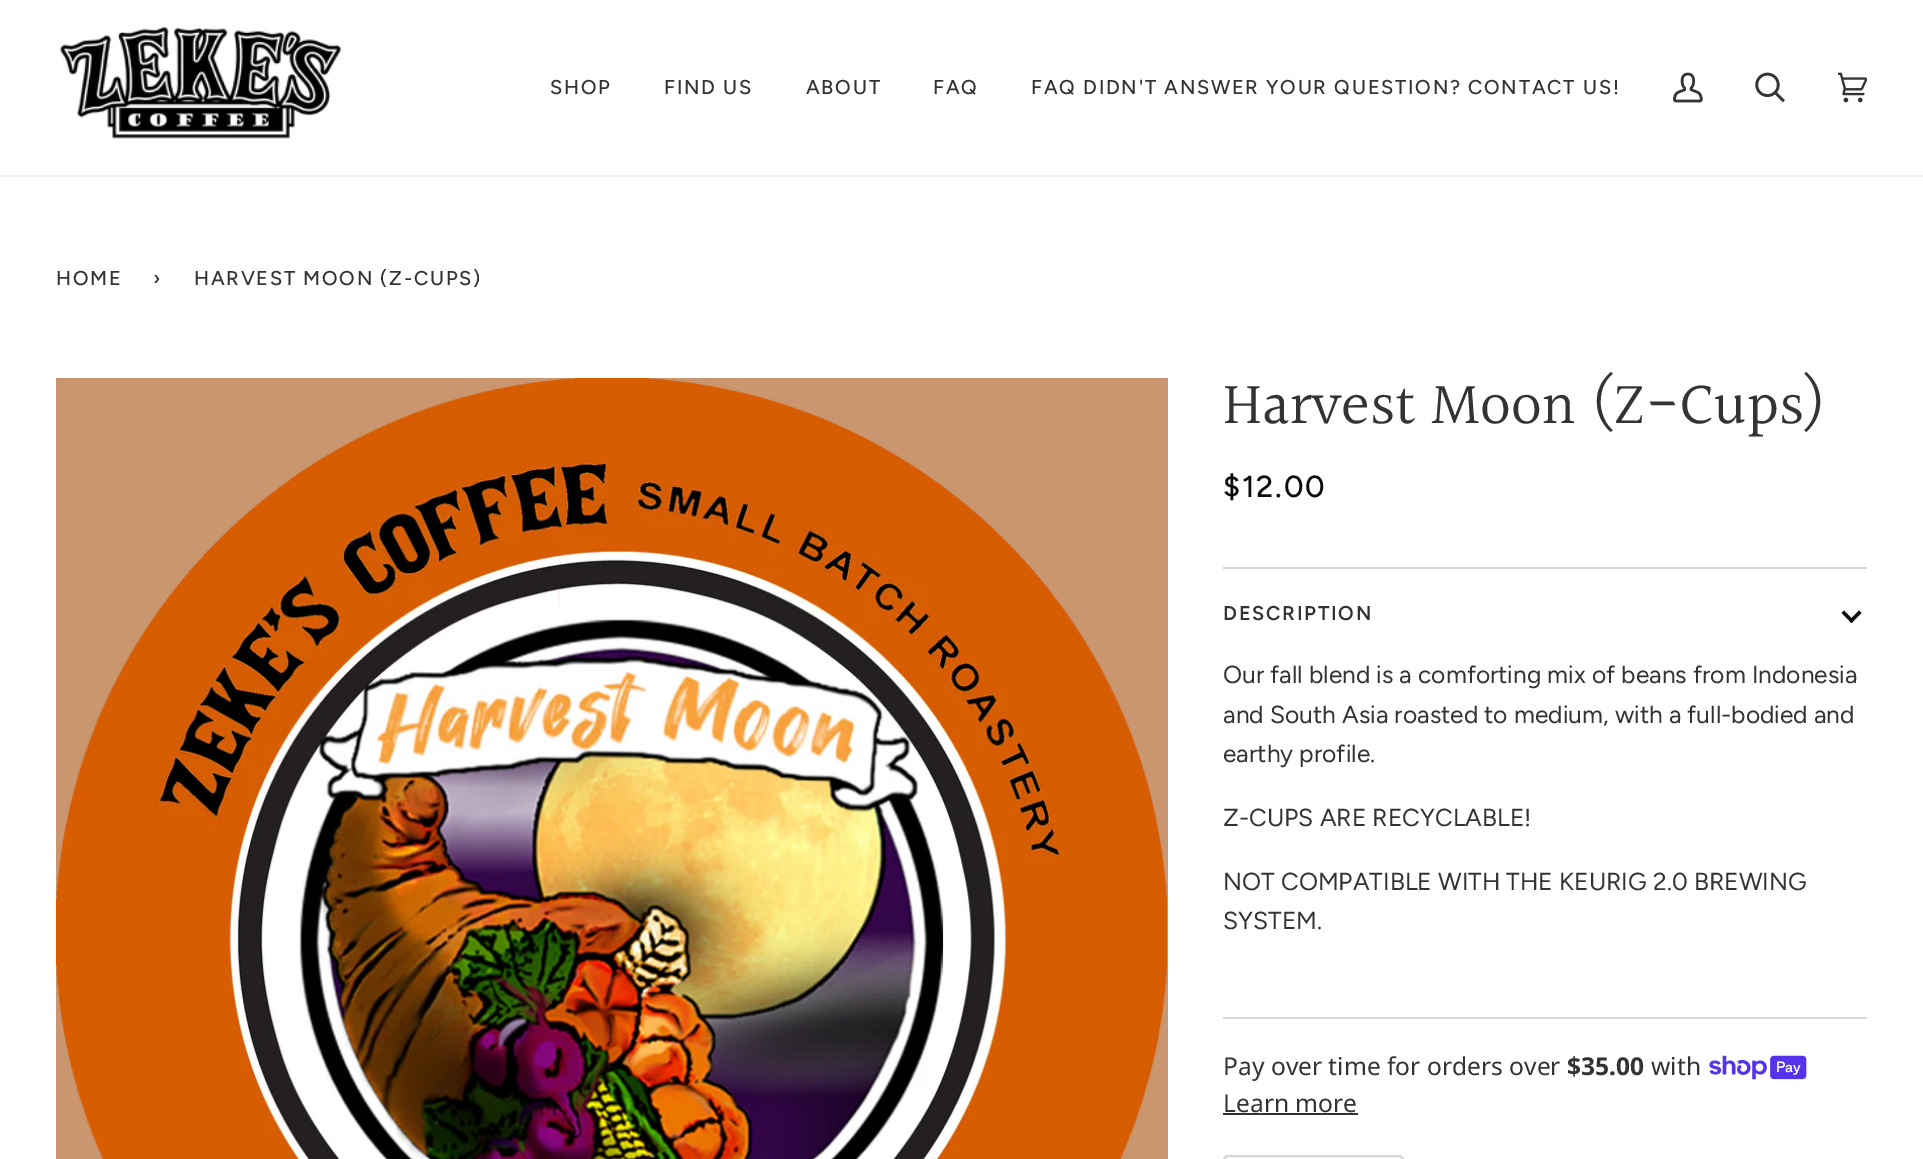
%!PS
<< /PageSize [1923 1159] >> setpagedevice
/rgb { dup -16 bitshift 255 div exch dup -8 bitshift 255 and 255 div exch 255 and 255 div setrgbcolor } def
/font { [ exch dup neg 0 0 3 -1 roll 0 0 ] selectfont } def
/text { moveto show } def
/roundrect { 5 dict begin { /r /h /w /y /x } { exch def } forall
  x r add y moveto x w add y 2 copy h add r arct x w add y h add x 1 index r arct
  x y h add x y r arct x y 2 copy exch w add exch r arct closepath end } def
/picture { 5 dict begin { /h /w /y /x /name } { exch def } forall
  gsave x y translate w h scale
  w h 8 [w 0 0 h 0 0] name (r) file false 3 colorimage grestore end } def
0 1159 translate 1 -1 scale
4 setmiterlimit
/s1 { /Halant-Regular 60.4 font 16#333333 rgb } def
/s2 { /Figtree-Regular 24.6 font 16#333333 rgb } def
/s3 { /NotoSans-Regular 24.6 font 16#333333 rgb } def
/s4 { /NotoSans-Bold 24.6 font 16#333333 rgb } def
16#FFFFFF rgb
0 0 1923 1159 rectfill
16#F8F0E7 rgb
0 175 1923 2 rectfill
(pic1.raw) 59 26 282 113 picture
/Figtree-Medium 19.95 font
16#333333 rgb
550 94 moveto 1.75 0 (SHOP) ashow
664 94 moveto 1.75 0 (FIND US) ashow
806 94 moveto 1.75 0 (ABOUT) ashow
933 94 moveto 1.75 0 (FAQ) ashow
1031 94 moveto 1.75 0 (FAQ DIDN'T ANSWER YOUR QUESTION?) ashow
1468 94 moveto 1.75 0 (CONTACT US!) ashow
(pic2.raw) 1673 72 30 31 picture
(pic3.raw) 1755 72 30 31 picture
(pic4.raw) 1838 72 29 31 picture
56 285 moveto 1.75 0 (HOME) ashow
153 285 moveto 1.75 0 (›) ashow
194 285 moveto 1.75 0 (HARVEST MOON \(Z-CUPS\)) ashow
16#C9966F rgb
56 378 1112 781 rectfill
(pic5.raw) 56 378 1112 781 picture
s1
(Harvest Moon \(Z-Cups\)) 1223 426 text
/Figtree-Medium 30.5 font
16#0E0C0C rgb
1223 497 moveto 1.75 0 ($12.00) ashow
16#D6D6D6 rgb
1223 567 644 2 rectfill
1223 1017 644 2 rectfill
/Figtree-SemiBold 19.95 font
16#333333 rgb
1223 620 moveto 1.75 0 (DESCRIPTION) ashow
16#0E0C0C rgb
1849 620.5 moveto 1859 610.5 lineto 1861.5 613 lineto 1851.5 623 lineto closepath fill
1841.5 613 moveto 1844 610.5 lineto 1854 620.5 lineto 1851.5 623 lineto closepath fill
s2
(Our fall blend is a comforting mix of beans from Indonesia) 1223 683 text
(and South Asia roasted to medium, with a full-bodied and) 1223 723 text
(earthy profile.) 1223 762 text
(Z-CUPS ARE RECYCLABLE!) 1223 826 text
(NOT COMPATIBLE WITH THE KEURIG 2.0 BREWING) 1223 890 text
(SYSTEM.) 1223 929 text
s3
(Pay over time for orders over) 1223 1075 text
s4
($35.00) 1567 1075 text
s3
(with) 1651 1075 text
(pic6.raw) 1709 1055 98 25 picture
(Learn more) 1223 1112 text
1223 1113 135 2 rectfill
16#D6D6D6 rgb
2 setlinewidth
1224 1156 179 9 4 roundrect stroke
showpage
